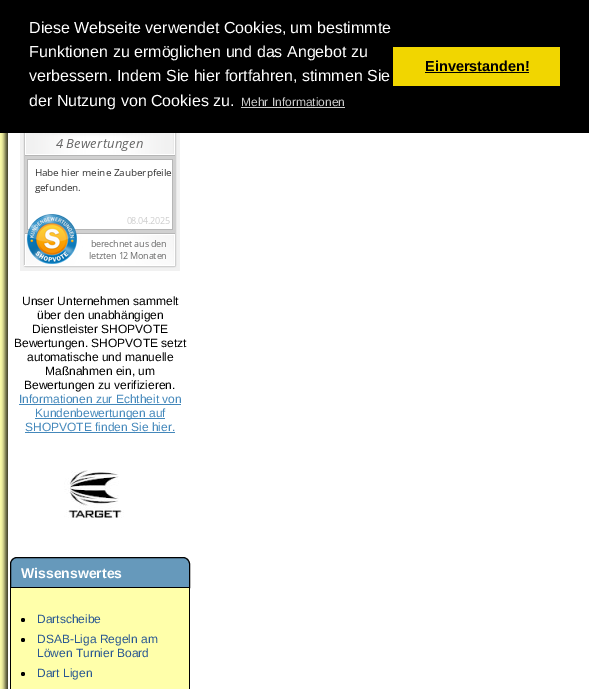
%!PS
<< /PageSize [589 689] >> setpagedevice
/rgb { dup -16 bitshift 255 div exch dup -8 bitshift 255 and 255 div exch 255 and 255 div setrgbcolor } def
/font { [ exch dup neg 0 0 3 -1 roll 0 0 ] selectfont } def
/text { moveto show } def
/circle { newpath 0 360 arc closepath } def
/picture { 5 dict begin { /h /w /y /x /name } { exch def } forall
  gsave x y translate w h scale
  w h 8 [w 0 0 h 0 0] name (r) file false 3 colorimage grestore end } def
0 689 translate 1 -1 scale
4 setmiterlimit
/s1 { /LiberationSans-Regular 16 font 16#FFFFFF rgb } def
/s2 { /LiberationSans-Regular 12 font 16#CCCCCC rgb } def
/s3 { /LiberationSans-Bold 14.5 font 16#000000 rgb } def
/s4 { /LiberationSans-Regular 12 font 16#000000 rgb } def
/s5 { /LiberationSans-Regular 12 font 16#4488BB rgb } def
/s6 { /LiberationSans-Bold 14 font 16#FFFFFF rgb } def
/s7 { /LiberationSans-Regular 12 font 16#295792 rgb } def
16#FFFFFF rgb
0 0 589 689 rectfill
16#000000 rgb
0 0 589 133 rectfill
s1
(Diese Webseite verwendet Cookies, um bestimmte) 29 33 text
(Funktionen zu ermöglichen und das Angebot zu) 29 57 text
(verbessern. Indem Sie hier fortfahren, stimmen Sie) 29 81 text
(der Nutzung von Cookies zu.) 29 106 text
s2
(Mehr Informationen) 241 106 text
241 107 104 1 rectfill
16#F1D600 rgb
393 47 167 39 rectfill
s3
(Einverstanden!) 425 71 text
425 72 104 1 rectfill
(pic1.raw) 0 133 8 556 picture
(pic2.raw) 20 133 160 138 picture
s4
(Unser Unternehmen sammelt) 22 305 text
(über den unabhängigen) 37 319 text
(Dienstleister SHOPVOTE) 32 333 text
(Bewertungen. SHOPVOTE setzt) 14 347 text
(automatische und manuelle) 27 361 text
(Maßnahmen ein, um) 45 375 text
(Bewertungen zu verifizieren.) 24 389 text
s5
(Informationen zur Echtheit von) 19 403 text
19 404 162 1 rectfill
35 418 130 1 rectfill
(Kundenbewertungen auf) 35 417 text
(SHOPVOTE finden Sie hier.) 25 431 text
25 432 150 1 rectfill
(pic3.raw) 64 470 60 48 picture
16#6699BB rgb
17 557.5 moveto 183 557.5 lineto 186.5 557.5 189.5 560.5 189.5 564 curveto 189.5 587.5 lineto 10.5 587.5 lineto 10.5 564 lineto 10.5 560.5 13.5 557.5 17 557.5 curveto closepath gsave fill grestore
16#000000 rgb
stroke
s6
(Wissenswertes) 21 578 text
16#FFFFAA rgb
11 588 178 101 rectfill
16#000000 rgb
10 588 moveto 190 588 lineto 190 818 lineto 190 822 187 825 183 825 curveto 17 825 lineto 13 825 10 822 10 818 curveto closepath 11 588 moveto 189 588 lineto 189 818 lineto 189 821 186 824 183 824 curveto 17 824 lineto 14 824 11 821 11 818 curveto closepath eofill
23 620 2 circle fill
s7
(Dartscheibe) 37 623 text
16#000000 rgb
23 640 2 circle fill
s7
(DSAB-Liga Regeln am) 37 643 text
(Löwen Turnier Board) 37 657 text
16#000000 rgb
23 674 2 circle fill
s7
(Dart Ligen) 37 677 text
showpage
